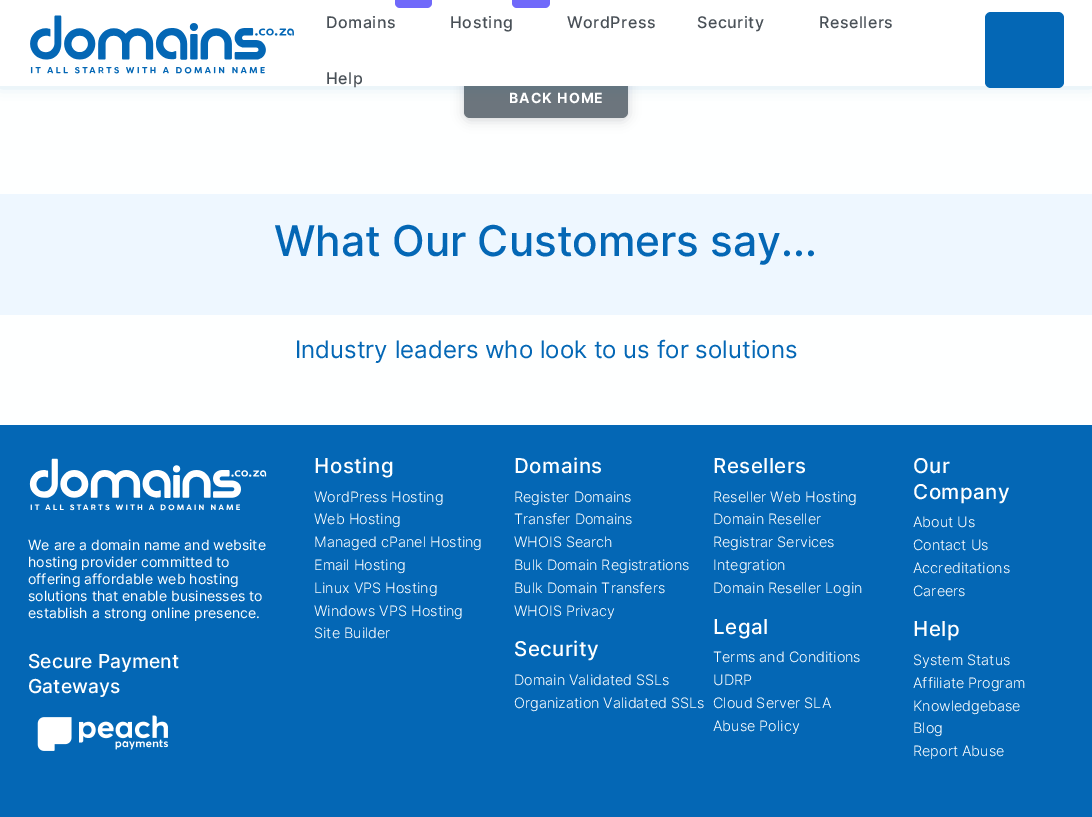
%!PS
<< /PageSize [1092 817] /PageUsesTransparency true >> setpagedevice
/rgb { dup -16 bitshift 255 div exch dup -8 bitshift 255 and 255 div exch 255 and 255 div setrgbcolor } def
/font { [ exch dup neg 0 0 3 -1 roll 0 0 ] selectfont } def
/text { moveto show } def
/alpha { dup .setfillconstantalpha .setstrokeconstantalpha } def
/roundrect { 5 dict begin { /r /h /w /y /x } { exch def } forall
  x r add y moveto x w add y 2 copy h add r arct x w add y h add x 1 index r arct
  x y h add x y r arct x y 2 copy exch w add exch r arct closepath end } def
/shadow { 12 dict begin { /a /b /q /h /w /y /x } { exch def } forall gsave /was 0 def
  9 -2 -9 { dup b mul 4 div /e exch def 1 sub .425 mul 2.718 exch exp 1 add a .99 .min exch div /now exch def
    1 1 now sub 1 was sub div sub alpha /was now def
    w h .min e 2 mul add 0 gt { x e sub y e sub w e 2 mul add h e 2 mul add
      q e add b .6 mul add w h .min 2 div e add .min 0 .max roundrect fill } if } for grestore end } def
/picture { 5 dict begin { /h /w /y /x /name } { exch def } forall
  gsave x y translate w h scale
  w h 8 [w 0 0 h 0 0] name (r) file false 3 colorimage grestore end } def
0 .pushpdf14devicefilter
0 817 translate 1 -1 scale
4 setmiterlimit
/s1 { /Inter-Medium 42.4 font 16#0467B5 rgb } def
/s2 { /Inter-Regular 24 font 16#0467B5 rgb } def
/s3 { /Inter-Regular 14.1 font 16#FFFFFF rgb } def
/s4 { /Inter-Medium 19.25 font 16#FFFFFF rgb } def
/s5 { /Inter-Light 14.4 font 16#FFFFFF rgb } def
16#FEFFFF rgb
0 0 1092 817 rectfill
16#494F54 rgb
464 79 164 41 6 6 0.25 shadow
16#6C757D rgb
464 77 164 41 6 roundrect fill
16#0467B5 rgb
0 -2 1092 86 0 7.5 0.24 shadow
16#FFFFFF rgb
0 0 1092 86 rectfill
(pic1.raw) 30 15 264 59 picture
/Inter-Medium 16 font
16#495057 rgb
326 28 moveto 0.5 0 (Domains) ashow
16#7069FA rgb
395 -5 37 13 5 roundrect fill
16#495057 rgb
450 28 moveto 0.5 0 (Hosting) ashow
16#7069FA rgb
512 -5 38 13 5 roundrect fill
16#495057 rgb
567 28 moveto 0.5 0 (WordPress) ashow
697 28 moveto 0.5 0 (Security) ashow
819 28 moveto 0.5 0 (Resellers) ashow
326 84 moveto 0.5 0 (Help) ashow
16#0467B5 rgb
985 12 79 76 6 roundrect fill
/Inter-Bold 14 font
16#FFFFFF rgb
509 103 moveto 1 0 (BACK HOME) ashow
16#EEF7FF rgb
0 194 1092 121 rectfill
s1
(What Our Customers say...) 274 256 text
s2
(Industry leaders who look to us for solutions) 295 358 text
0 425 1092 392 rectfill
(pic2.raw) 29 458 238 53 picture
s3
(We are a domain name and website) 28 550 text
(hosting provider committed to) 28 567 text
(offering affordable web hosting) 28 584 text
(solutions that enable businesses to) 28 601 text
(establish a strong online presence.) 28 618 text
s4
(Secure Payment) 28 668 text
(Gateways) 28 693 text
(pic3.raw) 37 715 131 36 picture
/Inter-Medium 20.5 font
314 473 moveto 0.5 0 (Hosting) ashow
s5
(WordPress Hosting) 314 502 text
(Web Hosting) 314 524 text
(Managed cPanel Hosting) 314 547 text
(Email Hosting) 314 570 text
(Linux VPS Hosting) 314 593 text
(Windows VPS Hosting) 314 616 text
(Site Builder) 314 638 text
/Inter-Medium 20.5 font
514 473 moveto 0.5 0 (Domains) ashow
s5
(Register Domains) 514 502 text
(Transfer Domains) 514 524 text
(WHOIS Search) 514 547 text
(Bulk Domain Registrations) 514 570 text
(Bulk Domain Transfers) 514 593 text
(WHOIS Privacy) 514 616 text
/Inter-Medium 20.5 font
514 656 moveto 0.5 0 (Security) ashow
s5
(Domain Validated SSLs) 514 685 text
(Organization Validated SSLs) 514 708 text
/Inter-Medium 20.5 font
713 473 moveto 0.5 0 (Resellers) ashow
s5
(Reseller Web Hosting) 713 502 text
(Domain Reseller) 713 524 text
(Registrar Services) 713 547 text
(Integration) 713 570 text
(Domain Reseller Login) 713 593 text
/Inter-Medium 20.5 font
713 634 moveto 0.5 0 (Legal) ashow
s5
(Terms and Conditions) 713 662 text
(UDRP) 713 685 text
(Cloud Server SLA) 713 708 text
(Abuse Policy) 713 731 text
/Inter-Medium 20.5 font
913 473 moveto 0.5 0 (Our) ashow
913 499 moveto 0.5 0 (Company) ashow
s5
(About Us) 913 527 text
(Contact Us) 913 550 text
(Accreditations) 913 573 text
(Careers) 913 596 text
/Inter-Medium 20.5 font
913 636 moveto 0.5 0 (Help) ashow
s5
(System Status) 913 665 text
(Affiliate Program) 913 688 text
(Knowledgebase) 913 711 text
(Blog) 913 733 text
(Report Abuse) 913 756 text
.poppdf14devicefilter showpage
